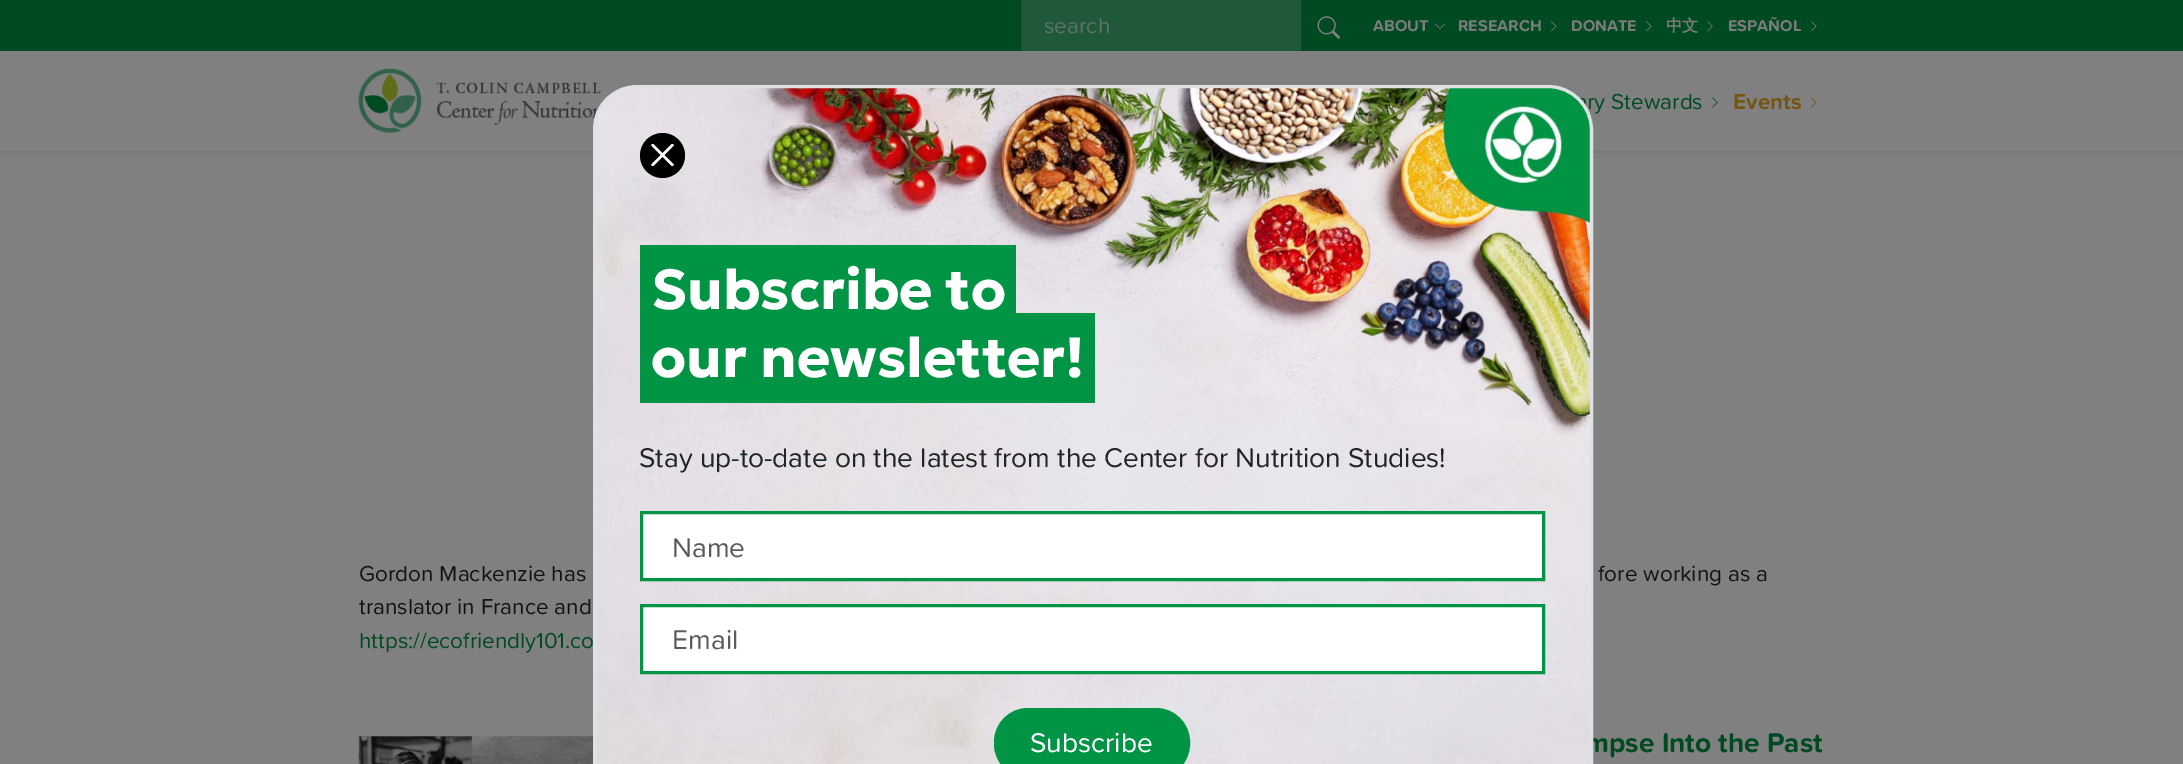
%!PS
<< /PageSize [2183 764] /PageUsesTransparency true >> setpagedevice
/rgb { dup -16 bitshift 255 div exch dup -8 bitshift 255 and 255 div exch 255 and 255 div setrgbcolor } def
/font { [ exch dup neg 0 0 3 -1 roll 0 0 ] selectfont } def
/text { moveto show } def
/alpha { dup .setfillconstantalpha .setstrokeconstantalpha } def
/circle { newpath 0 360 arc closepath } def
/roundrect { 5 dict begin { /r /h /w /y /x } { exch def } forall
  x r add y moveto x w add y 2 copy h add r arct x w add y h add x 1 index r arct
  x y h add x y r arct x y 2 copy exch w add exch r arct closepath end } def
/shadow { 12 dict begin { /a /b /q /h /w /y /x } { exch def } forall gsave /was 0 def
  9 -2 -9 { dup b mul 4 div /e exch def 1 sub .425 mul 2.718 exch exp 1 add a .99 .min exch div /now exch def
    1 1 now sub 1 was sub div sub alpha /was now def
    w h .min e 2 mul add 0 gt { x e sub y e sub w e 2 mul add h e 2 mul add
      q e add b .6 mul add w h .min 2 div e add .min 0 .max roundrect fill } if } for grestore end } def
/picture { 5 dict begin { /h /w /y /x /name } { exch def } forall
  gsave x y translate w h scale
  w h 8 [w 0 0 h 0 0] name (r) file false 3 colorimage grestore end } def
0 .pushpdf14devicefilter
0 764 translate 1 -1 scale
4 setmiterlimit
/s1 { /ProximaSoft-Regular 22.5 font 16#5E7267 rgb } def
/s2 { /ProximaSoft-Bold 16.25 font 16#7B7B7B rgb } def
/s3 { /WenQuanYiZenHei-Bold 16.25 font 16#7B7B7B rgb } def
/s4 { /ProximaSoft-Regular 22.5 font 16#004A22 rgb } def
/s5 { /ProximaSoft-Bold 22.5 font 16#745612 rgb } def
/s6 { /ProximaSoft-Regular 22.5 font 16#111315 rgb } def
/s7 { /ProximaSoft-Bold 28.1 font 16#004A22 rgb } def
/s8 { /Geologica-Bold 56.25 font 16#FFFFFF rgb } def
/s9 { /ProximaSoft-Regular 28.1 font 16#212529 rgb } def
/s10 { /ProximaSoft-Regular 28.1 font 16#595C5F rgb } def
/s11 { /ProximaSoft-Regular 28.1 font 16#FFFFFF rgb } def
16#808080 rgb
0 0 2183 764 rectfill
16#004A22 rgb
0 0 2183 51 rectfill
16#20583A rgb
1021 0 280 51 rectfill
s1
(search) 1044 33 text
(pic1.raw) 1317 16 23 23 picture
s2
(ABOUT) 1373 31 text
(pic2.raw) 1435 23 10 6 picture
(RESEARCH) 1458 31 text
(pic3.raw) 1551 21 6 11 picture
(DONATE) 1571 31 text
(pic3.raw) 1646 21 6 11 picture
s3
(中文) 1666 31 text
(pic4.raw) 1707 21 6 11 picture
s2
(ESPAÑOL) 1728 31 text
(pic3.raw) 1811 21 6 11 picture
16#000000 rgb
0 53 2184 100 0 2 0.1 shadow
16#808080 rgb
0 51 2183 100 rectfill
(pic5.raw) 358 68 243 65 picture
s4
(ry Stewards) 1587 109 text
(pic6.raw) 1712 97 6 11 picture
s5
(Events) 1733 109 text
(pic7.raw) 1811 97 6 11 picture
s6
(Gordon Mackenzie has) 359 581 text
(fore working as a) 1598 581 text
(translator in France and) 359 614 text
s4
(https://ecofriendly101.co) 359 648 text
(pic8.raw) 358 736 235 28 picture
s7
(mpse Into the Past) 1585 752 text
(pic9.raw) 594 86 997 678 picture
16#DEE2E6 rgb
3 setlinewidth
594.5 86.5 997 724 43.5 roundrect stroke
16#000000 rgb
662.5 155.5 22.5 circle fill
(pic10.raw) 651 144 23 22 picture
16#009444 rgb
640 245 376 68 rectfill
s8
(Subscribe to) 651 309 text
16#009444 rgb
640 313 455 90 rectfill
s8
(our newsletter!) 651 377 text
s9
(Stay up-to-date on the latest from the Center for Nutrition Studies!) 639 467 text
16#FFFFFF rgb
641.5 512.5 moveto 1543.5 512.5 lineto 1543.5 579.5 lineto 641.5 579.5 lineto closepath gsave fill grestore
16#009444 rgb
stroke
s10
(Name) 672 557 text
16#FFFFFF rgb
641.5 605.5 moveto 1543.5 605.5 lineto 1543.5 672.5 lineto 641.5 672.5 lineto closepath gsave fill grestore
16#009444 rgb
stroke
s10
(Email) 672 649 text
16#009444 rgb
995.5 709.5 193 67 32.5 roundrect gsave fill grestore
stroke
s11
(Subscribe) 1030 752 text
.poppdf14devicefilter showpage
